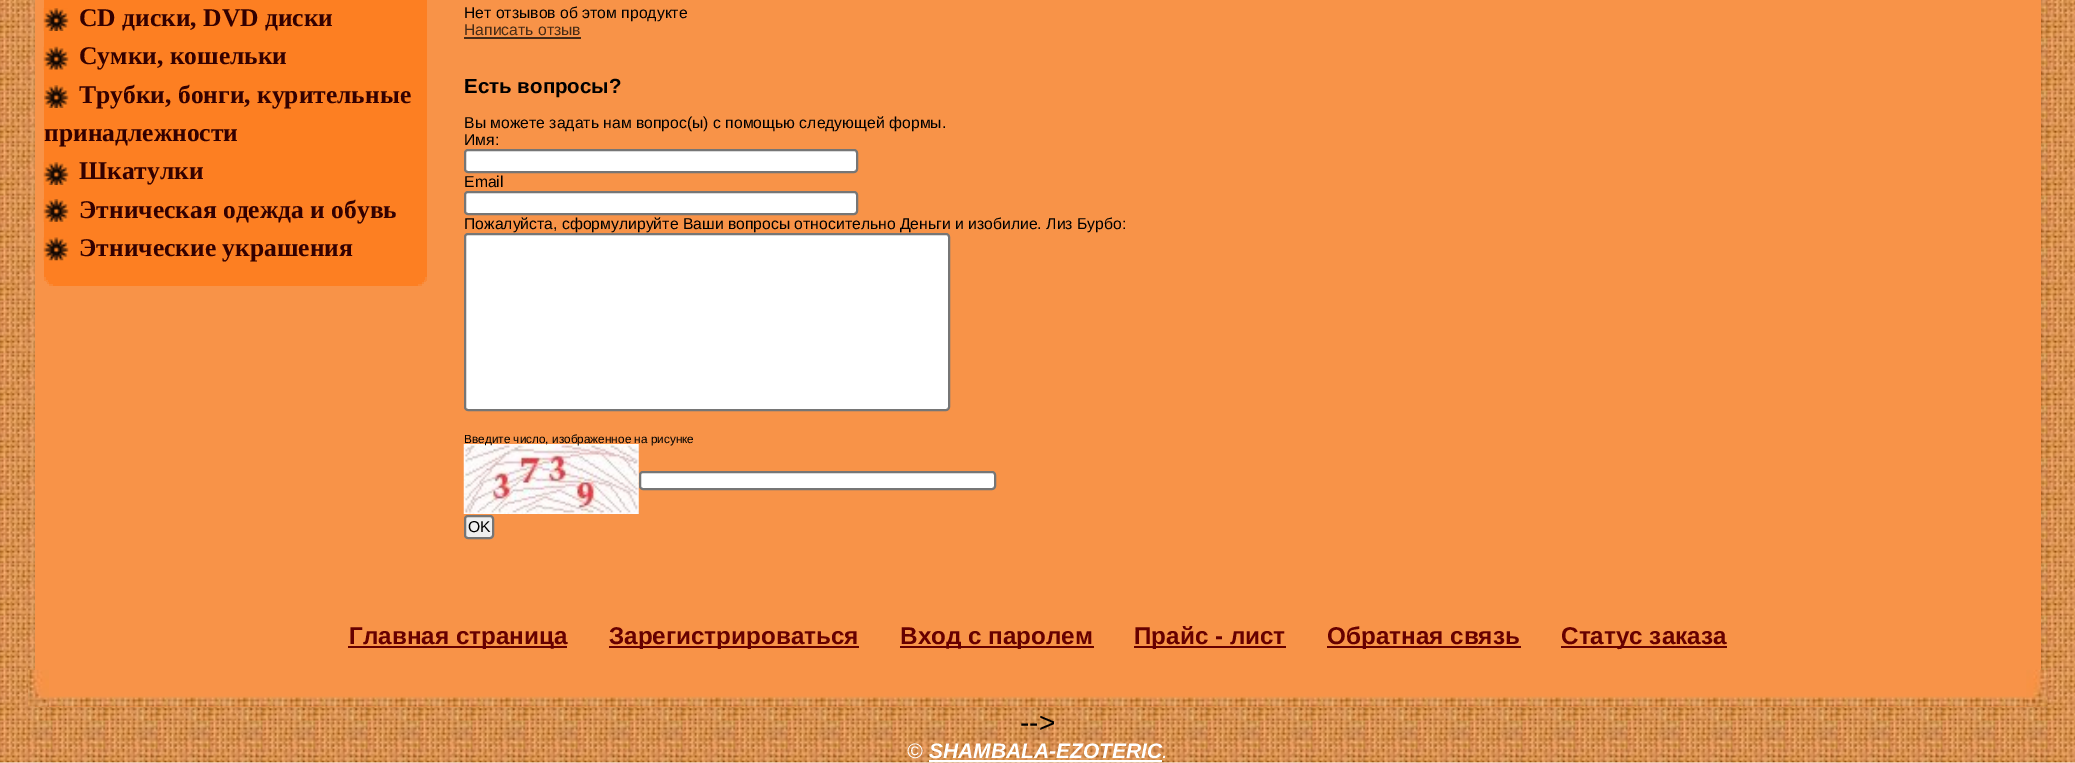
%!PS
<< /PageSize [2075 763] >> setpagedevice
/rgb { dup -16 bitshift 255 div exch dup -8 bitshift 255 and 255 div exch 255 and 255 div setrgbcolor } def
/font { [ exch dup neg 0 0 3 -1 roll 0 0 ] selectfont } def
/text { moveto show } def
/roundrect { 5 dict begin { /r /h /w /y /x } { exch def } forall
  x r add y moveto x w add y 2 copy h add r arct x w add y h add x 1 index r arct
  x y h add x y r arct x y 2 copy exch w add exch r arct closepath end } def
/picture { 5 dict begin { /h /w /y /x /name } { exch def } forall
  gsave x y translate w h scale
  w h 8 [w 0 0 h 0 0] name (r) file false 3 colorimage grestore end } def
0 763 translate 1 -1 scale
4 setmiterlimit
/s1 { /LiberationSerif-Bold 25.5 font 16#330000 rgb } def
/s2 { /LiberationSans-Regular 15.75 font 16#000000 rgb } def
/s3 { /LiberationSans-Regular 15.75 font 16#462B17 rgb } def
/s4 { /LiberationSans-Bold 20.5 font 16#000000 rgb } def
/s5 { /LiberationSans-Regular 11.8 font 16#000000 rgb } def
/s6 { /LiberationSans-Bold 24.25 font 16#660000 rgb } def
/s7 { /LiberationSans-Regular 28 font 16#000000 rgb } def
/s8 { /LiberationSans-Italic 21 font 16#FFFFFF rgb } def
/s9 { /LiberationSans-BoldItalic 21 font 16#FFFFFF rgb } def
16#FFFFFF rgb
0 0 2075 763 rectfill
(pic1.raw) 0 0 2075 763 picture
16#F89348 rgb
35 0 2006 707 rectfill
16#FD7F22 rgb
44 0 383 277 rectfill
(pic2.raw) 43 8 26 23 picture
s1
(СD диски, DVD диски) 79 26 text
(pic3.raw) 43 46 26 24 picture
(Сумки, кошельки) 79 64 text
(pic4.raw) 44 85 25 23 picture
(Трубки, бонги, курительные) 79 103 text
(принадлежности) 44 141 text
(pic2.raw) 43 162 26 23 picture
(Шкатулки) 79 179 text
(pic5.raw) 43 199 26 23 picture
(Этническая одежда и обувь) 79 218 text
(pic6.raw) 43 237 26 24 picture
(Этнические украшения) 79 256 text
16#FD7F22 rgb
46 277 379 3 rectfill
16#FA8935 rgb
425 277 2 4 rectfill
44 277 2 4 rectfill
16#FD7F22 rgb
47 280 377 2 rectfill
16#FA8935 rgb
424 280 2 2 rectfill
46 280 2 2 rectfill
16#FD7F22 rgb
49 282 373 2 rectfill
16#FA8935 rgb
422 282 2 2 rectfill
47 282 2 2 rectfill
16#FD7F22 rgb
53 284 365 2 rectfill
16#FA8935 rgb
418 284 4 2 rectfill
49 284 4 2 rectfill
s2
(Нет отзывов об этом продукте) 464 18 text
s3
(Написать отзыв) 464 35 text
464 37 117 2 rectfill
s4
(Есть вопросы?) 464 93 text
s2
(Вы можете задать нам вопрос\(ы\) с помощью следующей формы.) 464 128 text
(Имя:) 464 145 text
16#FFFFFF rgb
465 150 392 22 3 roundrect gsave fill grestore
16#767676 rgb
2 setlinewidth
stroke
s2
(Email) 464 187 text
16#FFFFFF rgb
465 192 392 22 3 roundrect gsave fill grestore
16#767676 rgb
stroke
s2
(Пожалуйста, сформулируйте Ваши вопросы относительно Деньги и изобилие. Лиз Бурбо:) 464 229 text
16#FFFFFF rgb
465 234 484 176 3 roundrect gsave fill grestore
16#767676 rgb
stroke
(pic7.raw) 463 444 176 70 picture
s5
(Введите число, изображенное на рисунке) 464 443 text
16#FFFFFF rgb
640 472 355 17 3 roundrect gsave fill grestore
16#767676 rgb
stroke
16#EFEFEF rgb
465 516 28 22 3 roundrect gsave fill grestore
16#767676 rgb
stroke
s2
(OK) 468 532 text
(pic8.raw) 35 696 2006 11 picture
16#660000 rgb
348 646 219 2 rectfill
s6
(Главная страница) 349 644 text
609 646 250 2 rectfill
(Зарегистрироваться) 609 644 text
900 646 194 2 rectfill
(Вход с паролем) 900 644 text
1134 646 152 2 rectfill
(Прайс - лист) 1134 644 text
1327 646 194 2 rectfill
(Обратная связь) 1327 644 text
1561 646 166 2 rectfill
(Статус заказа) 1561 644 text
(pic9.raw) 28 669 21 38 picture
(pic10.raw) 2026 669 22 38 picture
s7
(-->) 1020 732 text
s8
(©) 907 758 text
s9
(SHAMBALA-EZOTERIC) 929 758 text
s8
(.) 1162 758 text
929 760 233 2 rectfill
showpage
